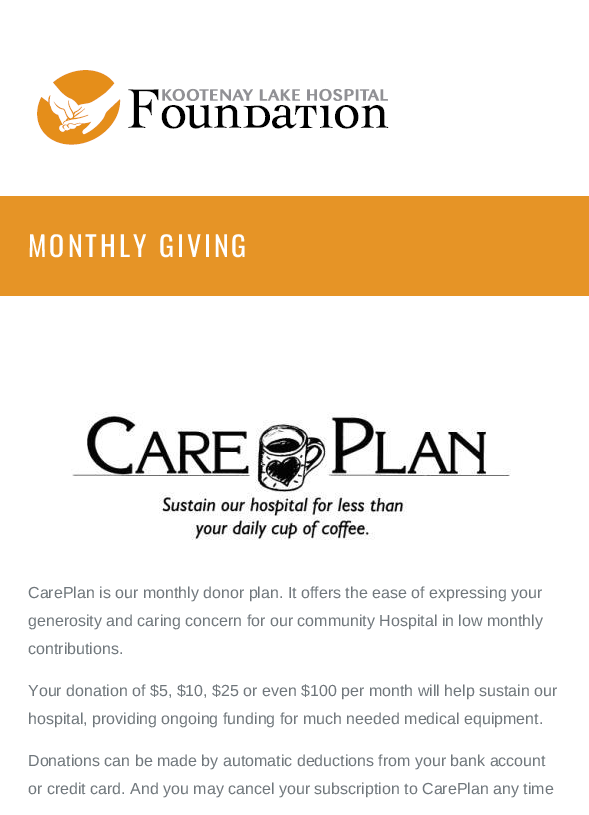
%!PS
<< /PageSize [589 815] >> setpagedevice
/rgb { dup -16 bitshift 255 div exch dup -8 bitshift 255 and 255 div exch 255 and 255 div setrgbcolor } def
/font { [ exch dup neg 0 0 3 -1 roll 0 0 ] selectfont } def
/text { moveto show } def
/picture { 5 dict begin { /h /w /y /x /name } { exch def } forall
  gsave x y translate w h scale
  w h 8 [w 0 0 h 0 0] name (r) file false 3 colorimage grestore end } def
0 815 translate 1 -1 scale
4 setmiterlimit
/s1 { /LiberationSans-Regular 16 font 16#70777C rgb } def
16#FFFFFF rgb
0 0 589 815 rectfill
(pic1.raw) 37 70 352 75 picture
16#E69426 rgb
0 196 589 100 rectfill
/Oswald-Regular 28 font
16#FFFFFF rgb
28 257 moveto 3 0 (MONTHLY GIVING) ashow
(pic2.raw) 71 412 440 128 picture
s1
(CarePlan is our monthly donor plan. It offers the ease of expressing your) 28 598 text
(generosity and caring concern for our community Hospital in low monthly) 28 626 text
(contributions.) 28 654 text
(Your donation of $5, $10, $25 or even $100 per month will help sustain our) 28 696 text
(hospital, providing ongoing funding for much needed medical equipment.) 28 724 text
(Donations can be made by automatic deductions from your bank account) 28 766 text
(or credit card. And you may cancel your subscription to CarePlan any time) 28 794 text
showpage
